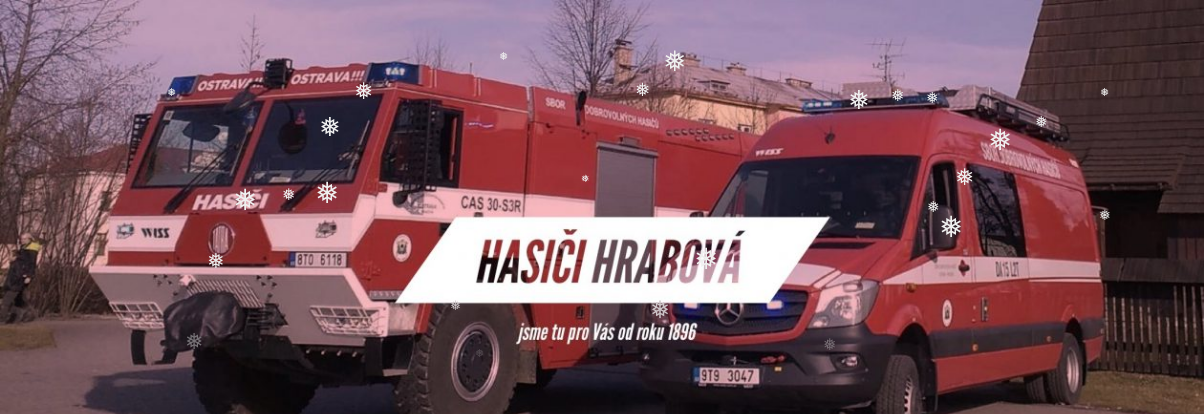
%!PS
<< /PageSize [1204 414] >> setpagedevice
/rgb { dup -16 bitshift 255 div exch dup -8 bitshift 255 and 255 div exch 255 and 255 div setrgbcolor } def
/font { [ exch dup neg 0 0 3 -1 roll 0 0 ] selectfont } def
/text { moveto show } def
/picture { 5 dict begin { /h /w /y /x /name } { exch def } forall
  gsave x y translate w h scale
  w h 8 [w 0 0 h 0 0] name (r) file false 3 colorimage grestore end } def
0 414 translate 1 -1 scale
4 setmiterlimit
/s1 { /DejaVuSans-Regular 11 font 16#EFEFEF rgb } def
/s2 { /DejaVuSans-Regular 28 font 16#EFEFEF rgb } def
/s3 { /DejaVuSans-Regular 23 font 16#EFEFEF rgb } def
/s4 { /DejaVuSans-Regular 18 font 16#EFEFEF rgb } def
/s5 { /DejaVuSans-Regular 26 font 16#EFEFEF rgb } def
/s6 { /DejaVuSans-Regular 16 font 16#EFEFEF rgb } def
/s7 { /DejaVuSans-Regular 15 font 16#EFEFEF rgb } def
/s8 { /DejaVuSans-Regular 29 font 16#EFEFEF rgb } def
/s9 { /DejaVuSans-Regular 10 font 16#EFEFEF rgb } def
/s10 { /DejaVuSans-Regular 14 font 16#EFEFEF rgb } def
/s11 { /DejaVuSans-Regular 21 font 16#EFEFEF rgb } def
/s12 { /DejaVuSans-Regular 13 font 16#CCC3C6 rgb } def
/s13 { /DejaVuSans-Regular 24 font 16#CCC3C6 rgb } def
/s14 { /DejaVuSans-Regular 22 font 16#767176 rgb } def
/s15 { /DejaVuSans-Regular 16 font 16#746B72 rgb } def
/s16 { /DejaVuSans-Regular 11 font 16#52494F rgb } def
16#FFFFFF rgb
0 0 1204 414 rectfill
(pic1.raw) 0 0 1204 414 picture
s1
(❅) 499 60 text
s2
(❅) 663 71 text
s1
(❅) 167 96 text
s3
(❅) 354 99 text
s4
(❅) 635 96 text
s5
(❅) 848 109 text
s6
(❅) 891 101 text
s7
(❅) 926 103 text
s1
(❅) 1100 96 text
s5
(❅) 319 136 text
s8
(❅) 988 150 text
s7
(❅) 1035 127 text
s9
(❅) 581 182 text
s3
(❅) 955 185 text
s8
(❅) 233 210 text
s6
(❅) 282 200 text
s8
(❅) 315 203 text
s7
(❅) 927 212 text
s8
(❅) 939 237 text
s10
(❅) 1099 220 text
s11
(❅) 207 268 text
s8
(❅) 694 269 text
s12
(❅) 450 310 text
s13
(❅) 650 318 text
s14
(❅) 185 349 text
s15
(❅) 823 350 text
s16
(❅) 475 357 text
showpage
